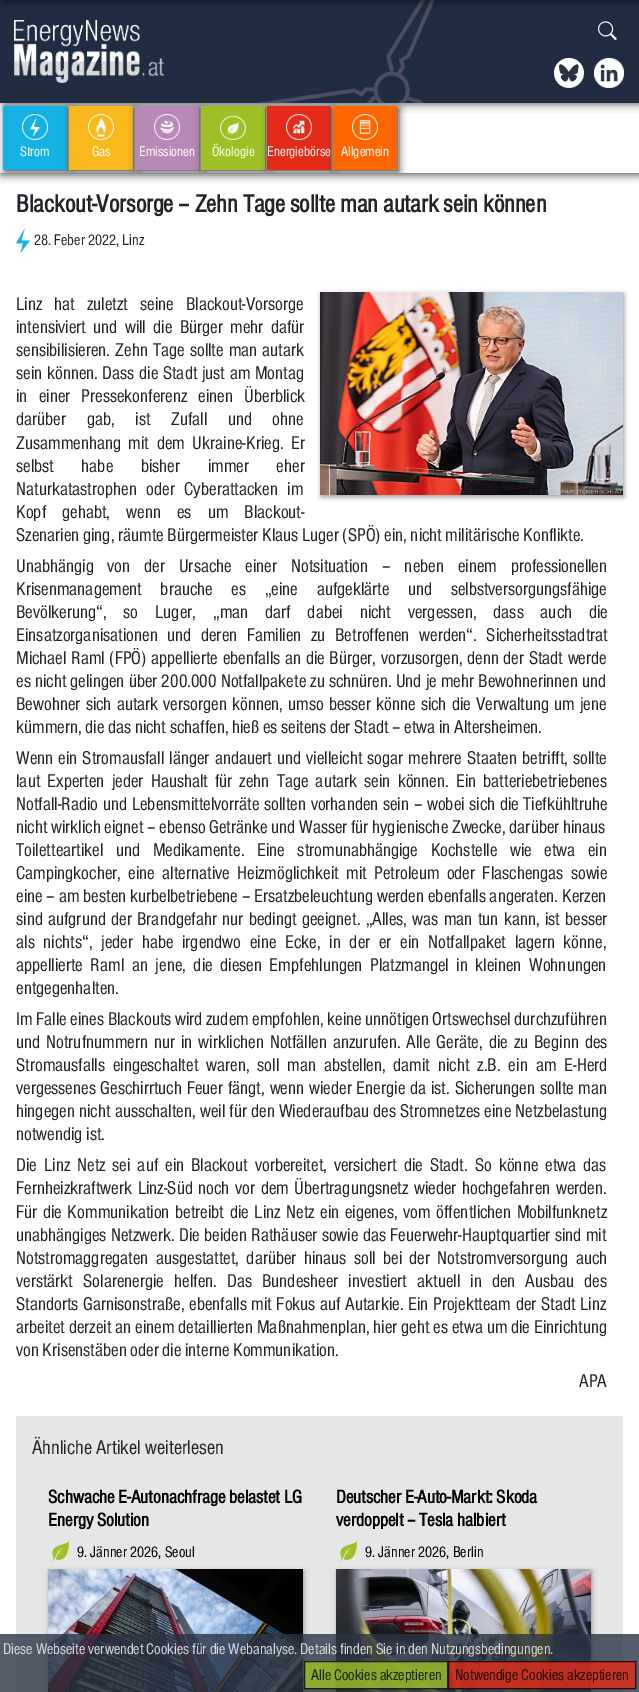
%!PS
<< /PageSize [639 1692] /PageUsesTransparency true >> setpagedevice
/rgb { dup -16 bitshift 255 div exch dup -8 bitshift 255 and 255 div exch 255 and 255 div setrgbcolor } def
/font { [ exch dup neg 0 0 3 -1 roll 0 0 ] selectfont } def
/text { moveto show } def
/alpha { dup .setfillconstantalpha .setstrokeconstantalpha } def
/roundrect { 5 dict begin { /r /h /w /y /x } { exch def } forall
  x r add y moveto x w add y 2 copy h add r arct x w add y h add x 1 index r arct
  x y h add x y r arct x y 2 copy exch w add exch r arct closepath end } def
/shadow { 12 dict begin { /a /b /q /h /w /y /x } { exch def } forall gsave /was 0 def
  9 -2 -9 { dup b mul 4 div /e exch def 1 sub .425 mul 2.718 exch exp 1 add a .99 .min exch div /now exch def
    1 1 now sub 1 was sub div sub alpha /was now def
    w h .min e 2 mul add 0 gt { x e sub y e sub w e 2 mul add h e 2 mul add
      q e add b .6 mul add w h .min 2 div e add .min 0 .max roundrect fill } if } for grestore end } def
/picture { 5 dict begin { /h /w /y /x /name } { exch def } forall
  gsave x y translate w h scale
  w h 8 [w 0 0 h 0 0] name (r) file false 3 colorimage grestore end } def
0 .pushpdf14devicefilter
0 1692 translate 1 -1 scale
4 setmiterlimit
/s1 { /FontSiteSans-Regular 14.5 font 16#FFFFFF rgb } def
/s2 { /FontSiteSans-Bold 25.6 font 16#212529 rgb } def
/s3 { /FontSiteSans-Regular 16 font 16#212529 rgb } def
/s4 { /FontSiteSans-Regular 19.2 font 16#212529 rgb } def
/s5 { /FontSiteSans-Regular 20.75 font 16#212529 rgb } def
/s6 { /FontSiteSans-Bold 19.2 font 16#000000 rgb } def
/s7 { /FontSiteSans-Regular 16 font 16#000000 rgb } def
/s8 { /FontSiteSans-Regular 16 font 16#D8D9DC rgb } def
/s9 { /FontSiteSans-Regular 16 font 16#1B2209 rgb } def
/s10 { /FontSiteSans-Regular 16 font 16#270907 rgb } def
16#FFFFFF rgb
0 0 639 1692 rectfill
gsave
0 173 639 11 rectclip
16#555555 rgb
1 2 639 173 0 4.5 1 shadow
grestore
16#000000 rgb
5 -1 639 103 0 5 1 shadow
(pic1.raw) 0 0 639 103 picture
5 -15 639 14 0 5 1 shadow
(pic2.raw) 14 20 150 63 picture
(pic3.raw) 554 58 30 30 picture
(pic4.raw) 594 58 30 30 picture
(pic5.raw) 598 21 19 19 picture
gsave
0 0 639 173 rectclip
16#444444 rgb
5 108 64 64 0 4 1 shadow
grestore
16#14B2E4 rgb
3 106 64 64 rectfill
(pic6.raw) 22 114 26 26 picture
s1
(Strom) 20 156 text
gsave
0 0 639 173 rectclip
16#444444 rgb
71 108 64 64 0 4 1 shadow
grestore
16#F9B81C rgb
69 106 64 64 rectfill
(pic7.raw) 88 114 26 26 picture
s1
(Gas) 92 156 text
gsave
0 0 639 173 rectclip
16#444444 rgb
137 108 64 64 0 4 1 shadow
grestore
16#B789B4 rgb
135 106 64 64 rectfill
(pic8.raw) 154 114 26 26 picture
s1
(Emissionen) 139 156 text
gsave
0 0 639 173 rectclip
16#444444 rgb
203 108 64 64 0 4 1 shadow
grestore
16#9DC125 rgb
201 106 64 64 rectfill
(pic9.raw) 220 115 26 25 picture
s1
(Ökologie) 212 156 text
gsave
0 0 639 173 rectclip
16#444444 rgb
269 108 64 64 0 4 1 shadow
grestore
16#E42A18 rgb
267 106 64 64 rectfill
(pic10.raw) 286 114 26 26 picture
s1
(Energiebörse) 267 156 text
gsave
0 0 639 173 rectclip
16#444444 rgb
335 108 64 64 0 4 1 shadow
grestore
16#FF6600 rgb
333 106 64 64 rectfill
(pic11.raw) 352 114 26 26 picture
s1
(Allgemein) 341 156 text
s2
(Blackout-Vorsorge – Zehn Tage sollte man autark sein können) 16 212 text
(pic12.raw) 16 228 14 25 picture
s3
(28. Feber 2022, Linz) 34 245 text
16#999999 rgb
321 294 303 203 0 2.5 1 shadow
(pic13.raw) 320 292 303 203 picture
/FontSiteSans-Regular 19.2 font
16#212529 rgb
16 310 moveto 8.5 0 32 (Linz hat zuletzt seine Blackout-Vorsorge) widthshow
16 333 moveto 3.75 0 32 (intensiviert und will die Bürger mehr dafür) widthshow
16 356 moveto 1.5 0 32 (sensibilisieren. Zehn Tage sollte man autark) widthshow
16 379 moveto 1 0 32 (sein können. Dass die Stadt just am Montag) widthshow
16 402 moveto 7.5 0 32 (in einer Pressekonferenz einen Überblick) widthshow
16 425 moveto 17 0 32 (darüber gab, ist Zufall und ohne) widthshow
16 449 moveto 4 0 32 (Zusammenhang mit dem Ukraine-Krieg. Er) widthshow
16 472 moveto 24 0 32 (selbst habe bisher immer eher) widthshow
16 495 moveto 6 0 32 (Naturkatastrophen oder Cyberattacken im) widthshow
16 518 moveto 12.5 0 32 (Kopf gehabt, wenn es um Blackout-) widthshow
(Szenarien ging, räumte Bürgermeister Klaus Luger \(SPÖ\) ein, nicht militärische Konflikte.) 16 541 text
16 572 moveto 10.25 0 32 (Unabhängig von der Ursache einer Notsituation – neben einem professionellen) widthshow
16 595 moveto 15 0 32 (Krisenmanagement brauche es „eine aufgeklärte und selbstversorgungsfähige) widthshow
16 618 moveto 13.25 0 32 (Bevölkerung“, so Luger, „man darf dabei nicht vergessen, dass auch die) widthshow
16 641 moveto 6 0 32 (Einsatzorganisationen und deren Familien zu Betroffenen werden“. Sicherheitsstadtrat) widthshow
16 664 moveto 1 0 32 (Michael Raml \(FPÖ\) appellierte ebenfalls an die Bürger, vorzusorgen, denn der Stadt werde) widthshow
16 687 moveto 0.5 0 32 (es nicht gelingen über 200.000 Notfallpakete zu schnüren. Und je mehr Bewohnerinnen und) widthshow
16 710 moveto 1.5 0 32 (Bewohner sich autark versorgen können, umso besser könne sich die Verwaltung um jene) widthshow
(kümmern, die das nicht schaffen, hieß es seitens der Stadt – etwa in Altersheimen.) 16 733 text
16 764 moveto 1.5 0 32 (Wenn ein Stromausfall länger andauert und vielleicht sogar mehrere Staaten betrifft, sollte) widthshow
16 787 moveto 3.5 0 32 (laut Experten jeder Haushalt für zehn Tage autark sein können. Ein batteriebetriebenes) widthshow
16 810 moveto 1 0 32 (Notfall-Radio und Lebensmittelvorräte sollten vorhanden sein – wobei sich die Tiefkühltruhe) widthshow
(nicht wirklich eignet – ebenso Getränke und Wasser für hygienische Zwecke, darüber hinaus) 16 833 text
16 856 moveto 9 0 32 (Toiletteartikel und Medikamente. Eine stromunabhängige Kochstelle wie etwa ein) widthshow
16 879 moveto 3.75 0 32 (Campingkocher, eine alternative Heizmöglichkeit mit Petroleum oder Flaschengas sowie) widthshow
16 902 moveto 0.25 0 32 (eine – am besten kurbelbetriebene – Ersatzbeleuchtung werden ebenfalls angeraten. Kerzen) widthshow
16 925 moveto 1.7 0 32 (sind aufgrund der Brandgefahr nur bedingt geeignet. „Alles, was man tun kann, ist besser) widthshow
16 948 moveto 5.1 0 32 (als nichts“, jeder habe irgendwo eine Ecke, in der er ein Notfallpaket lagern könne,) widthshow
16 971 moveto 4 0 32 (appellierte Raml an jene, die diesen Empfehlungen Platzmangel in kleinen Wohnungen) widthshow
(entgegenhalten.) 16 994 text
(Im Falle eines Blackouts wird zudem empfohlen, keine unnötigen Ortswechsel durchzuführen) 16 1025 text
16 1048 moveto 2.4 0 32 (und Notrufnummern nur in wirklichen Notfällen anzurufen. Alle Geräte, die zu Beginn des) widthshow
16 1071 moveto 4.4 0 32 (Stromausfalls eingeschaltet waren, soll man abstellen, damit nicht z.B. ein am E-Herd) widthshow
16 1094 moveto 1.25 0 32 (vergessenes Geschirrtuch Feuer fängt, wenn wieder Energie da ist. Sicherungen sollte man) widthshow
16 1117 moveto 0.6 0 32 (hingegen nicht ausschalten, weil für den Wiederaufbau des Stromnetzes eine Netzbelastung) widthshow
(notwendig ist.) 16 1140 text
16 1171 moveto 3.4 0 32 (Die Linz Netz sei auf ein Blackout vorbereitet, versichert die Stadt. So könne etwa das) widthshow
16 1194 moveto 2 0 32 (Fernheizkraftwerk Linz-Süd noch vor dem Übertragungsnetz wieder hochgefahren werden.) widthshow
16 1218 moveto 2 0 32 (Für die Kommunikation betreibt die Linz Netz ein eigenes, vom öffentlichen Mobilfunknetz) widthshow
16 1241 moveto 0.75 0 32 (unabhängiges Netzwerk. Die beiden Rathäuser sowie das Feuerwehr-Hauptquartier sind mit) widthshow
16 1264 moveto 3.75 0 32 (Notstromaggregaten ausgestattet, darüber hinaus soll bei der Notstromversorgung auch) widthshow
16 1287 moveto 6.5 0 32 (verstärkt Solarenergie helfen. Das Bundesheer investiert aktuell in den Ausbau des) widthshow
16 1310 moveto 1 0 32 (Standorts Garnisonstraße, ebenfalls mit Fokus auf Autarkie. Ein Projektteam der Stadt Linz) widthshow
16 1333 moveto 0.25 0 32 (arbeitet derzeit an einem detaillierten Maßnahmenplan, hier geht es etwa um die Einrichtung) widthshow
(von Krisenstäben oder die interne Kommunikation.) 16 1356 text
(APA) 579 1387 text
16#E6E6E6 rgb
16 1416 607 276 rectfill
s5
(Ähnliche Artikel weiterlesen) 32 1454 text
s6
(Schwache E-Autonachfrage belastet LG) 48 1503 text
(Energy Solution) 48 1526 text
(pic14.raw) 52 1541 17 20 picture
s7
(9. Jänner 2026, Seoul) 77 1557 text
16#999999 rgb
49 1571 255 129 0 2.5 1 shadow
(pic15.raw) 48 1569 255 123 picture
s6
(Deutscher E-Auto-Markt: Skoda) 336 1503 text
(verdoppelt – Tesla halbiert) 336 1526 text
(pic14.raw) 340 1541 17 20 picture
s7
(9. Jänner 2026, Berlin) 365 1557 text
16#999999 rgb
337 1571 255 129 0 2.5 1 shadow
(pic16.raw) 336 1569 255 123 picture
0.8 alpha
16#2A3445 rgb
0 1634 639 58 rectfill
1 alpha
s8
(Diese Webseite verwendet Cookies für die Webanalyse. Details finden Sie in den) 3 1654 text
(Nutzungsbedingungen) 431 1654 text
(.) 550 1654 text
0.8 alpha
16#9DC125 rgb
304 1661 144 28 rectfill
16#000000 rgb
304.5 1661.5 143 27 rectstroke
1 alpha
s9
(Alle Cookies akzeptieren) 311 1680 text
0.8 alpha
16#E42A18 rgb
448 1661 188 28 rectfill
16#000000 rgb
448.5 1661.5 187 27 rectstroke
1 alpha
s10
(Notwendige Cookies akzeptieren) 455 1680 text
.poppdf14devicefilter showpage
